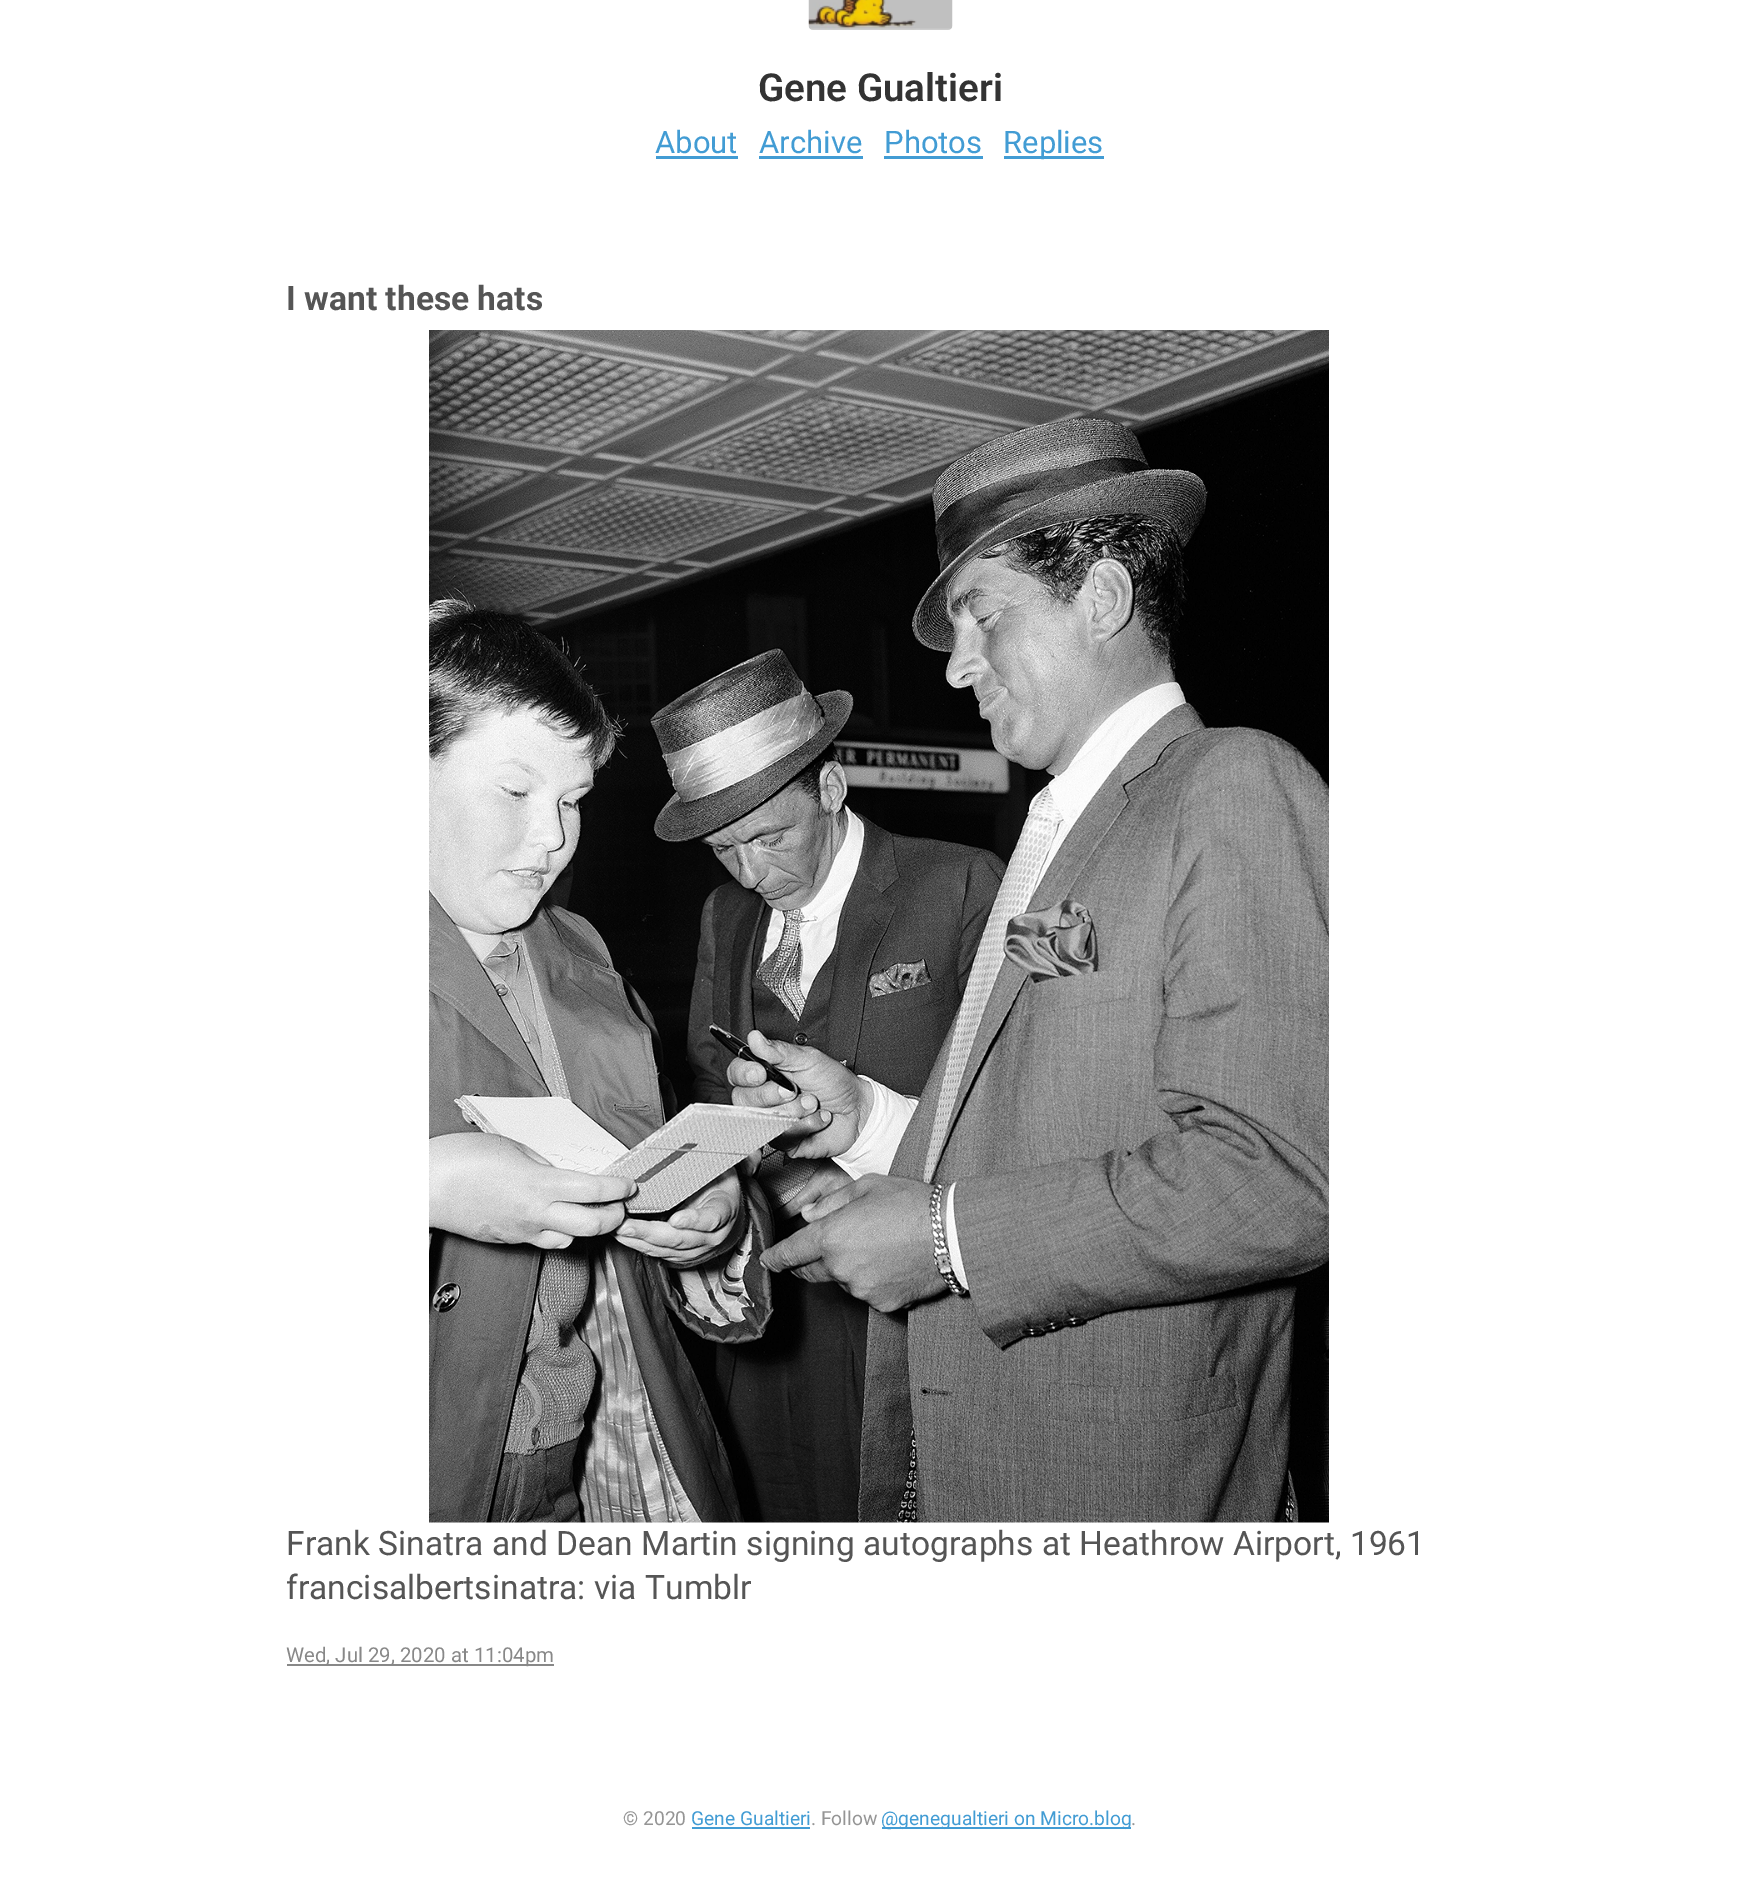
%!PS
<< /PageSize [1759 1878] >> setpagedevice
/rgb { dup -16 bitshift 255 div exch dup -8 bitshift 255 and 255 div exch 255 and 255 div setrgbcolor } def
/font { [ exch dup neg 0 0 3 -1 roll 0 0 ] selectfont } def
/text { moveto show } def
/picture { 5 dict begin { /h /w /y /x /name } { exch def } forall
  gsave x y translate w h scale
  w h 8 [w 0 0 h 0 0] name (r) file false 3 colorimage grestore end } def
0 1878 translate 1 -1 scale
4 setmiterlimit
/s1 { /Roboto-SemiBold 38.5 font 16#333333 rgb } def
/s2 { /Roboto-Regular 31 font 16#429CD4 rgb } def
/s3 { /Roboto-Bold 33.6 font 16#555555 rgb } def
/s4 { /Roboto-Regular 33.6 font 16#555555 rgb } def
/s5 { /Roboto-Regular 20.4 font 16#888888 rgb } def
/s6 { /Roboto-Regular 19.25 font 16#959595 rgb } def
/s7 { /Roboto-Regular 19.25 font 16#429CD4 rgb } def
16#FFFFFF rgb
0 0 1759 1878 rectfill
(pic1.raw) 808 0 145 30 picture
s1
(Gene Gualtieri) 758 101 text
s2
(About) 655 153 text
656 156 82 3 rectfill
(Archive) 759 153 text
759 156 104 3 rectfill
(Photos) 884 153 text
884 156 99 3 rectfill
1004 156 100 3 rectfill
(Replies) 1003 153 text
s3
(I want these hats) 286 310 text
(pic2.raw) 429 330 900 1193 picture
s4
(Frank Sinatra and Dean Martin signing autographs at Heathrow Airport, 1961) 286 1555 text
(francisalbertsinatra: via Tumblr) 286 1599 text
16#888888 rgb
287 1664 267 2 rectfill
s5
(Wed, Jul 29, 2020 at 11:04pm) 286 1662 text
s6
(© 2020) 623 1825 text
s7
(Gene Gualtieri) 691 1825 text
692 1827 118 2 rectfill
s6
(. Follow) 811 1825 text
16#429CD4 rgb
882 1827 249 2 rectfill
(@genegualtieri on Micro.blog) 881 1825 text
s6
(.) 1131 1825 text
showpage
